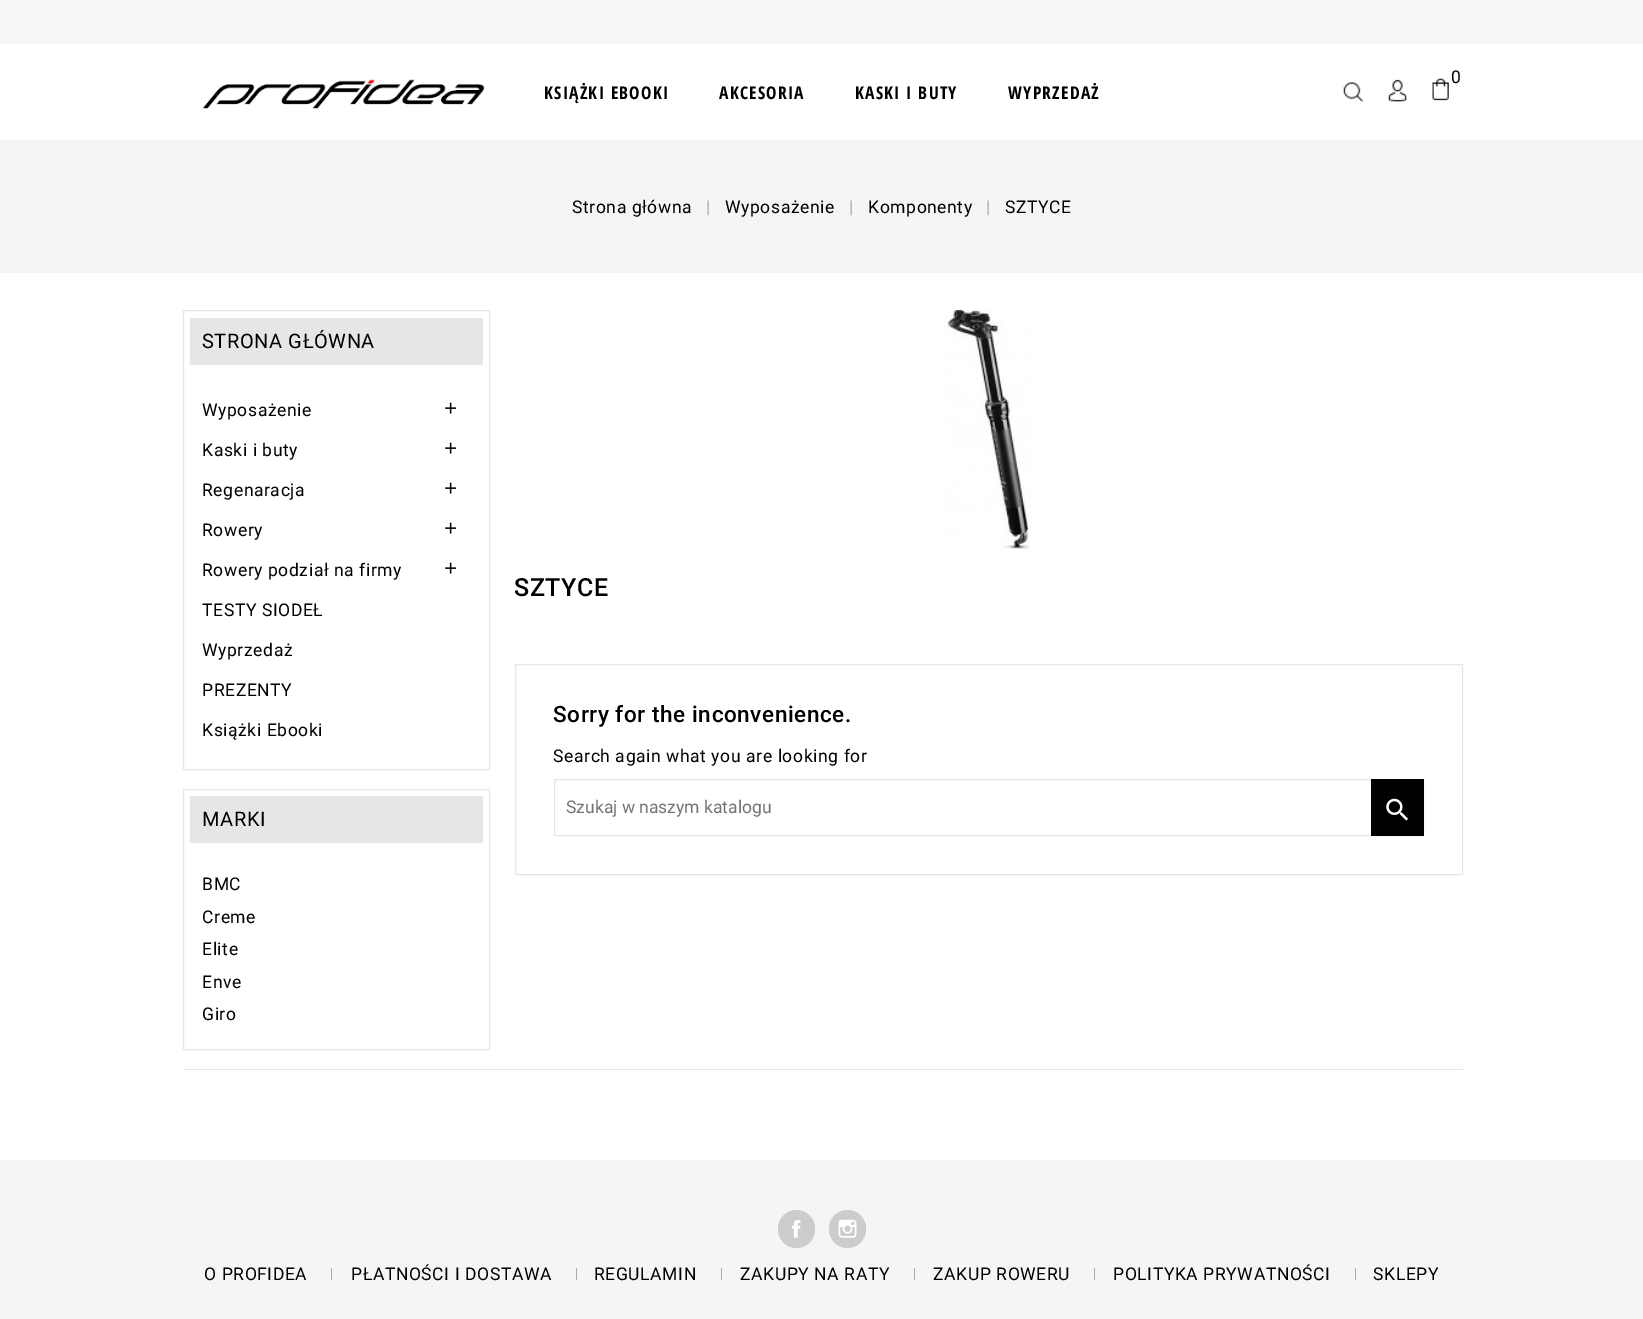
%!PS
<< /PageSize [1643 1319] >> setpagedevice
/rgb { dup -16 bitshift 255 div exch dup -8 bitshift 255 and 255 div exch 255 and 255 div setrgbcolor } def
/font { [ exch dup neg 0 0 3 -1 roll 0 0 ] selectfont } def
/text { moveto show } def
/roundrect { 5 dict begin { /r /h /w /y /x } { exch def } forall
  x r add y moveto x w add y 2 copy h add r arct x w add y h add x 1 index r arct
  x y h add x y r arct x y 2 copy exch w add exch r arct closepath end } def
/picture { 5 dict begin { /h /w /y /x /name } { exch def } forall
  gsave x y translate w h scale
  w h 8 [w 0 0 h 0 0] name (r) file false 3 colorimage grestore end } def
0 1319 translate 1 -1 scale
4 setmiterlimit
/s1 { /Roboto-Regular 17.5 font 16#757575 rgb } def
16#FFFFFF rgb
0 0 1643 1319 rectfill
16#F6F6F6 rgb
0 0 1643 44 rectfill
(pic1.raw) 1432 78 17 23 picture
/Roboto-Regular 17.5 font
16#000000 rgb
1451 83 moveto 0.6 0 (0) ashow
(pic2.raw) 202 79 283 30 picture
/OpenSansCondensed-Bold 17.5 font
544 99 moveto 1.25 0 (KSIĄŻKI EBOOKI) ashow
719 99 moveto 1.25 0 (AKCESORIA) ashow
855 99 moveto 1.25 0 (KASKI I BUTY) ashow
1008 99 moveto 1.25 0 (WYPRZEDAŻ) ashow
(pic3.raw) 1343 82 20 20 picture
(pic4.raw) 1388 79 19 23 picture
16#F5F5F5 rgb
0 140 1643 133 rectfill
/Roboto-Regular 17.5 font
16#000000 rgb
572 213 moveto 0.6 0 (Strona główna) ashow
16#AAAAAA rgb
706 213 moveto 0.6 0 (|) ashow
16#000000 rgb
725 213 moveto 0.6 0 (Wyposażenie) ashow
16#AAAAAA rgb
849 213 moveto 0.6 0 (|) ashow
16#000000 rgb
868 213 moveto 0.6 0 (Komponenty) ashow
16#AAAAAA rgb
986 213 moveto 0.6 0 (|) ashow
16#000000 rgb
1005 213 moveto 0.6 0 (SZTYCE) ashow
16#E6E6E6 rgb
183.5 310.5 306 459 rectstroke
190 318 293 47 rectfill
/Roboto-Regular 20 font
16#000000 rgb
202 348 moveto 0.6 0 (STRONA GŁÓWNA) ashow
/Roboto-Regular 17.5 font
202 416 moveto 0.6 0 (Wyposażenie) ashow
(pic5.raw) 445 402 12 12 picture
202 456 moveto 0.6 0 (Kaski i buty) ashow
(pic5.raw) 445 442 12 12 picture
202 496 moveto 0.6 0 (Regenaracja) ashow
(pic5.raw) 445 482 12 12 picture
202 536 moveto 0.6 0 (Rowery) ashow
(pic5.raw) 445 522 12 12 picture
202 576 moveto 0.6 0 (Rowery podział na firmy) ashow
(pic5.raw) 445 562 12 12 picture
202 616 moveto 0.6 0 (TESTY SIODEŁ) ashow
202 656 moveto 0.6 0 (Wyprzedaż) ashow
202 696 moveto 0.6 0 (PREZENTY) ashow
202 736 moveto 0.6 0 (Książki Ebooki) ashow
16#E6E6E6 rgb
183.5 789.5 306 260 rectstroke
190 796 293 47 rectfill
/Roboto-Regular 20 font
16#000000 rgb
202 826 moveto 0.6 0 (MARKI) ashow
/Roboto-Regular 17.5 font
202 890 moveto 0.6 0 (BMC) ashow
202 923 moveto 0.6 0 (Creme) ashow
202 955 moveto 0.6 0 (Elite) ashow
202 988 moveto 0.6 0 (Enve) ashow
202 1020 moveto 0.6 0 (Giro) ashow
(pic6.raw) 944 310 87 239 picture
/Roboto-Medium 25 font
514 596 moveto 0.6 0 (SZTYCE) ashow
16#E6E6E6 rgb
515.5 664.5 947 210 rectstroke
/Roboto-Medium 22.5 font
16#000000 rgb
553 722 moveto 0.6 0 (Sorry for the inconvenience.) ashow
/Roboto-Regular 17.5 font
553 762 moveto 0.6 0 (Search again what you are looking for) ashow
16#E6E6E6 rgb
554.5 779.5 869 56 rectstroke
s1
(Szukaj w naszym katalogu) 566 813 text
16#000000 rgb
1371 779 53 57 rectfill
(pic7.raw) 1386 798 22 23 picture
16#F5F5F5 rgb
0 1160 1643 159 rectfill
16#E6E6E6 rgb
183 1069 1280 1 rectfill
16#CCCCCC rgb
778 1210 37 38 18.5 roundrect fill
(pic8.raw) 792 1220 9 18 picture
829 1210 37 38 18.5 roundrect fill
(pic9.raw) 838 1219 19 19 picture
16#000000 rgb
204 1280 moveto 0.6 0 (O PROFIDEA) ashow
16#AAAAAA rgb
331 1268 1 12 rectfill
16#000000 rgb
351 1280 moveto 0.6 0 (PŁATNOŚCI I DOSTAWA) ashow
16#AAAAAA rgb
576 1268 1 12 rectfill
16#000000 rgb
594 1280 moveto 0.6 0 (REGULAMIN) ashow
16#AAAAAA rgb
721 1268 1 12 rectfill
16#000000 rgb
740 1280 moveto 0.6 0 (ZAKUPY NA RATY) ashow
16#AAAAAA rgb
914 1268 1 12 rectfill
16#000000 rgb
933 1280 moveto 0.6 0 (ZAKUP ROWERU) ashow
16#AAAAAA rgb
1094 1268 1 12 rectfill
16#000000 rgb
1113 1280 moveto 0.6 0 (POLITYKA PRYWATNOŚCI) ashow
16#AAAAAA rgb
1355 1268 1 12 rectfill
16#000000 rgb
1373 1280 moveto 0.6 0 (SKLEPY) ashow
showpage
